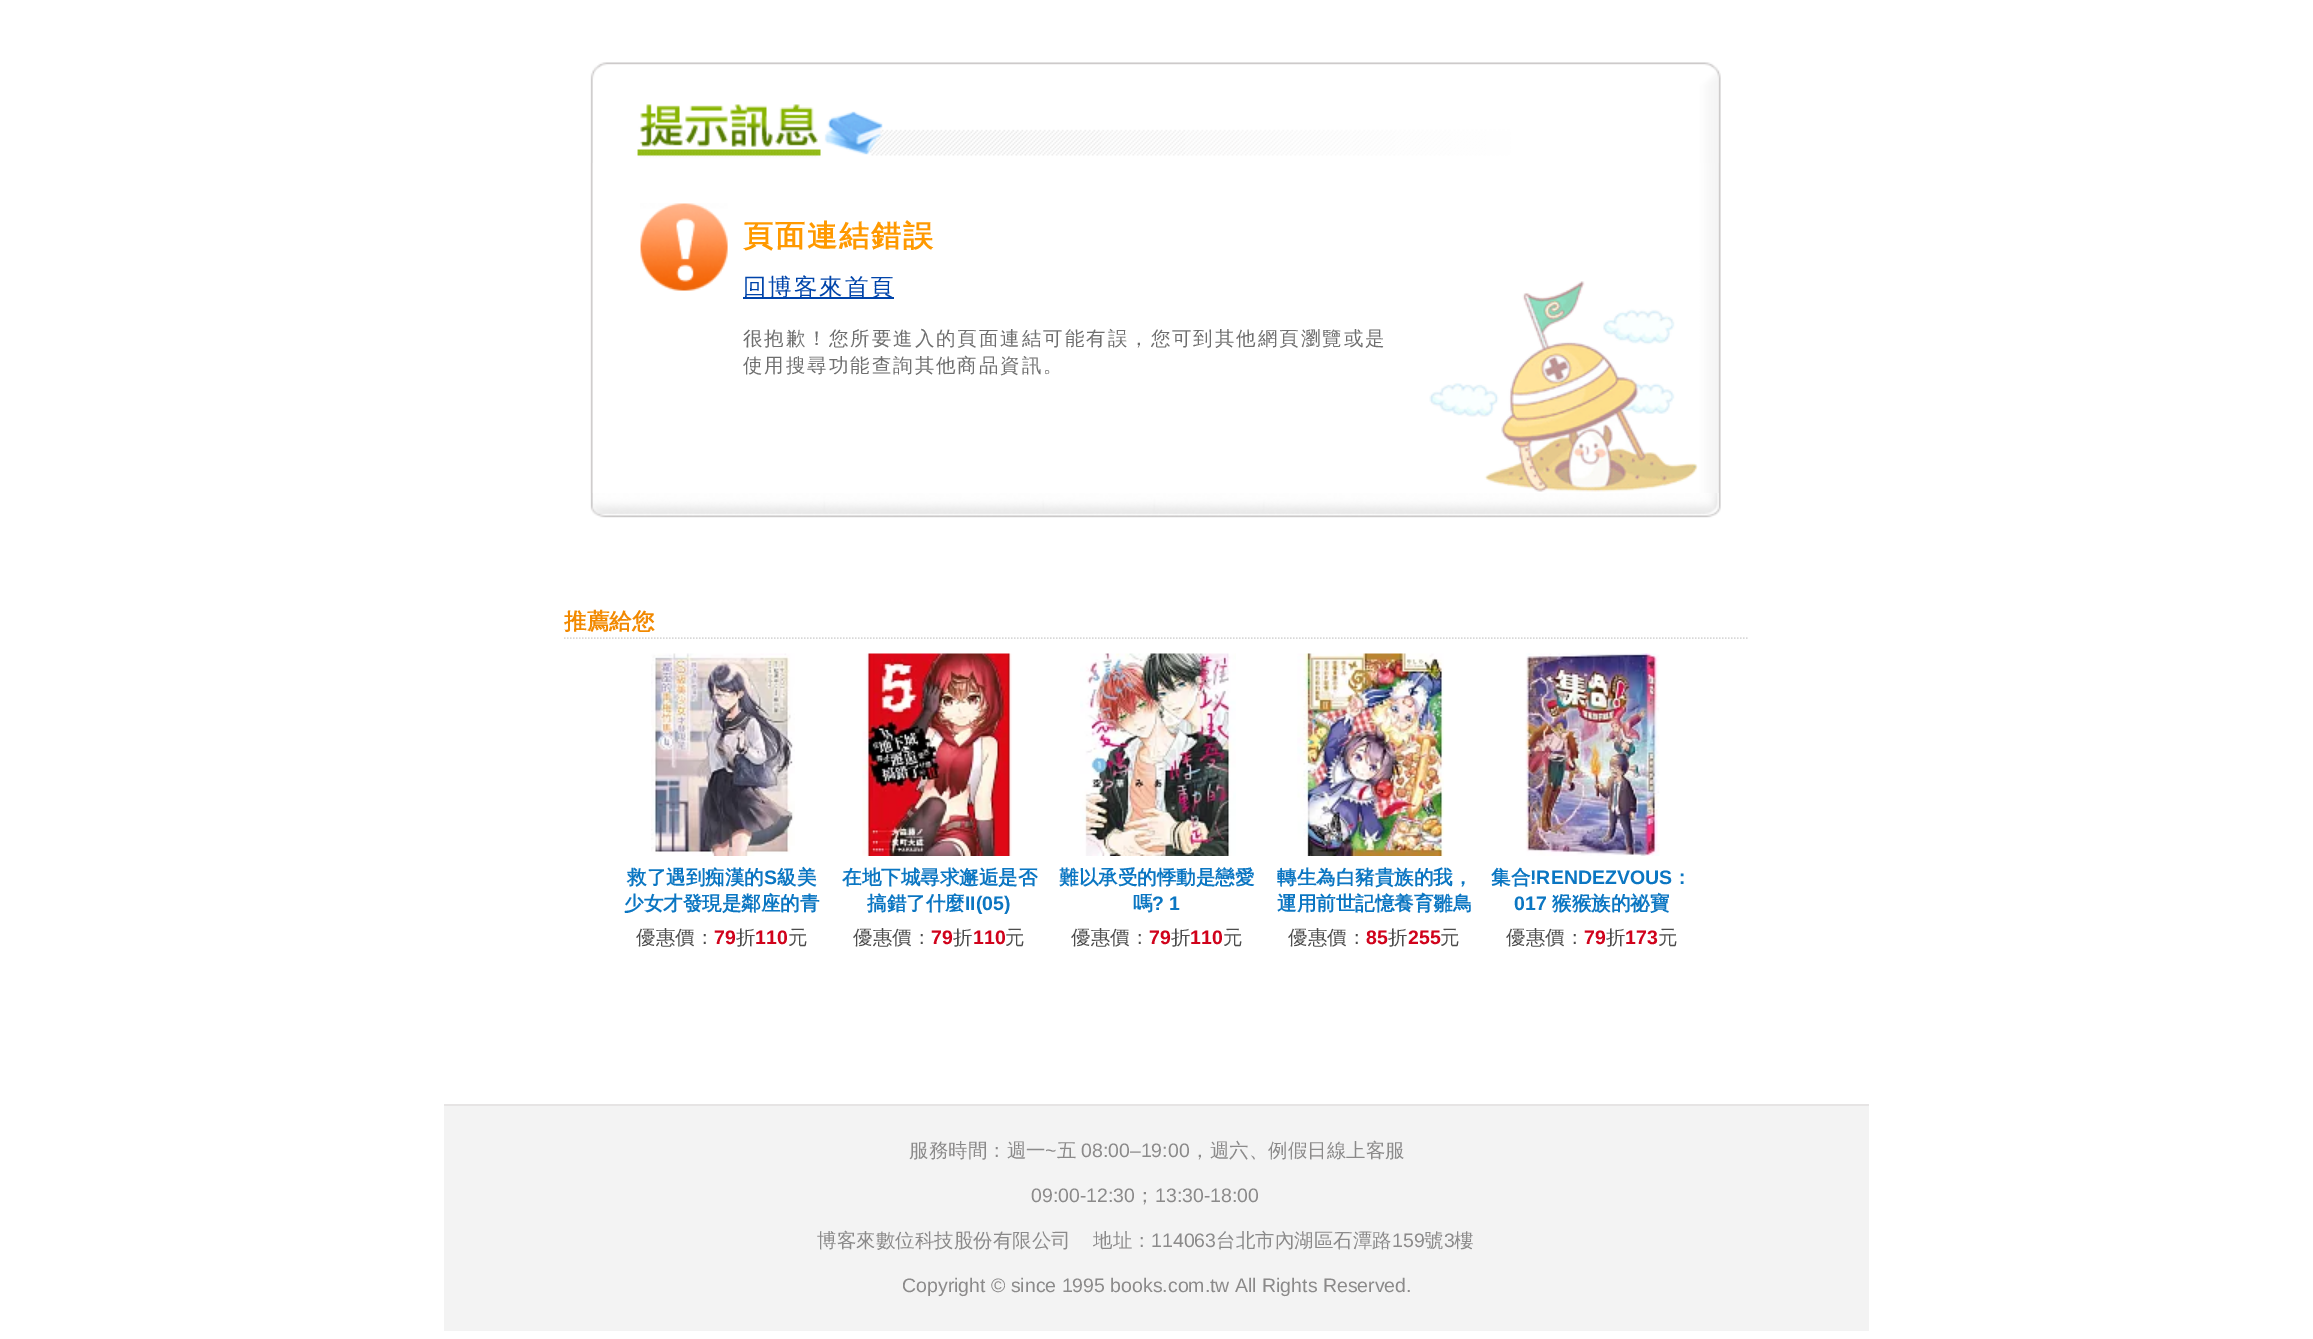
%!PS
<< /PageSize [2313 1339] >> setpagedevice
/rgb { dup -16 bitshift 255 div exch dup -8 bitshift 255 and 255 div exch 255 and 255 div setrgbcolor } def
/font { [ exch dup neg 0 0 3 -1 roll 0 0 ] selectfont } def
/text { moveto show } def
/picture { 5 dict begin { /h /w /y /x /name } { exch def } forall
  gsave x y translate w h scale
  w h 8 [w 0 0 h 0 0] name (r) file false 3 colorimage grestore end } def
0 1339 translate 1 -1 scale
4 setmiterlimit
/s1 { /WenQuanYiZenHei-Bold 22.5 font 16#F28900 rgb } def
/s2 { /WenQuanYiZenHei-Bold 19.5 font 16#0B76C2 rgb } def
/s3 { /LiberationSans-Bold 19.5 font 16#0B76C2 rgb } def
/s4 { /WenQuanYiZenHei-Medium 19.5 font 16#4C4C4C rgb } def
/s5 { /LiberationSans-Bold 19.5 font 16#D0021B rgb } def
/s6 { /WenQuanYiZenHei-Medium 19.5 font 16#8B8A8A rgb } def
/s7 { /LiberationSans-Regular 19.5 font 16#8B8A8A rgb } def
16#FFFFFF rgb
0 0 2313 1339 rectfill
(pic1.raw) 590 62 1131 101 picture
(pic2.raw) 590 163 1131 330 picture
(pic3.raw) 640 203 88 88 picture
/WenQuanYiZenHei-Bold 30 font
16#FF9900 rgb
743 246 moveto 1.95 0 (頁面連結錯誤) ashow
16#0044AA rgb
743 297 151 2 rectfill
/WenQuanYiZenHei-Medium 23.5 font
743 295 moveto 1.95 0 (回博客來首頁) ashow
/WenQuanYiZenHei-Medium 19.5 font
16#6E6E6E rgb
743 345 moveto 1.95 0 (很抱歉！您所要進入的頁面連結可能有誤，您可到其他網頁瀏覽或是) ashow
743 372 moveto 1.95 0 (使用搜尋功能查詢其他商品資訊。) ashow
(pic4.raw) 1429 281 269 211 picture
(pic5.raw) 590 493 1131 25 picture
16#D8D8D8 rgb
1.5 setlinewidth
[1.5 1.5] 0 setdash
564 638 moveto 1749 638 lineto stroke
s1
(推薦給您) 564 629 text
(pic6.raw) 651 653 144 203 picture
s2
(救了遇到痴漢的) 627 884 text
s3
(S) 764 884 text
s2
(級美) 777 884 text
(少女才發現是鄰座的青) 624 910 text
s4
(優惠價：) 636 944 text
s5
(79) 714 944 text
s4
(折) 736 944 text
s5
(110) 755 944 text
s4
(元) 788 944 text
(pic7.raw) 862 653 150 203 picture
s2
(在地下城尋求邂逅是否) 842 884 text
(搞錯了什麼) 867 910 text
s3
(II\(05\)) 965 910 text
s4
(優惠價：) 853 944 text
s5
(79) 931 944 text
s4
(折) 953 944 text
s5
(110) 973 944 text
s4
(元) 1005 944 text
(pic8.raw) 1080 653 156 203 picture
s2
(難以承受的悸動是戀愛) 1059 884 text
(嗎) 1133 910 text
s3
(? 1) 1152 910 text
s4
(優惠價：) 1071 944 text
s5
(79) 1149 944 text
s4
(折) 1171 944 text
s5
(110) 1190 944 text
s4
(元) 1223 944 text
(pic9.raw) 1297 653 147 203 picture
s2
(轉生為白豬貴族的我，) 1277 884 text
(運用前世記憶養育雛鳥) 1277 910 text
s4
(優惠價：) 1288 944 text
s5
(85) 1366 944 text
s4
(折) 1388 944 text
s5
(255) 1408 944 text
s4
(元) 1440 944 text
(pic10.raw) 1525 653 135 203 picture
s2
(集合) 1491 884 text
s3
(!RENDEZVOUS) 1530 884 text
s2
(：) 1672 884 text
s3
(017) 1514 910 text
s2
(猴猴族的祕寶) 1552 910 text
s4
(優惠價：) 1506 944 text
s5
(79) 1584 944 text
s4
(折) 1606 944 text
s5
(173) 1625 944 text
s4
(元) 1658 944 text
16#F3F3F3 rgb
444 1106 1425 225 rectfill
16#E6E4E4 rgb
444 1104 1425 2 rectfill
s6
(服務時間：週一) 909 1157 text
s7
(~) 1045 1157 text
s6
(五) 1057 1157 text
s7
(08:00–19:00) 1081 1157 text
s6
(，週六、例假日線上客服) 1190 1157 text
s7
(09:00-12:30) 1031 1202 text
s6
(；) 1135 1202 text
s7
(13:30-18:00) 1155 1202 text
s6
(博客來數位科技股份有限公司) 817 1247 text
(地址：) 1093 1247 text
s7
(114063) 1151 1247 text
s6
(台北市內湖區石潭路) 1216 1247 text
s7
(159) 1392 1247 text
s6
(號) 1424 1247 text
s7
(3) 1444 1247 text
s6
(樓) 1454 1247 text
s7
(Copyright © since 1995 books.com.tw All Rights Reserved.) 902 1292 text
showpage
